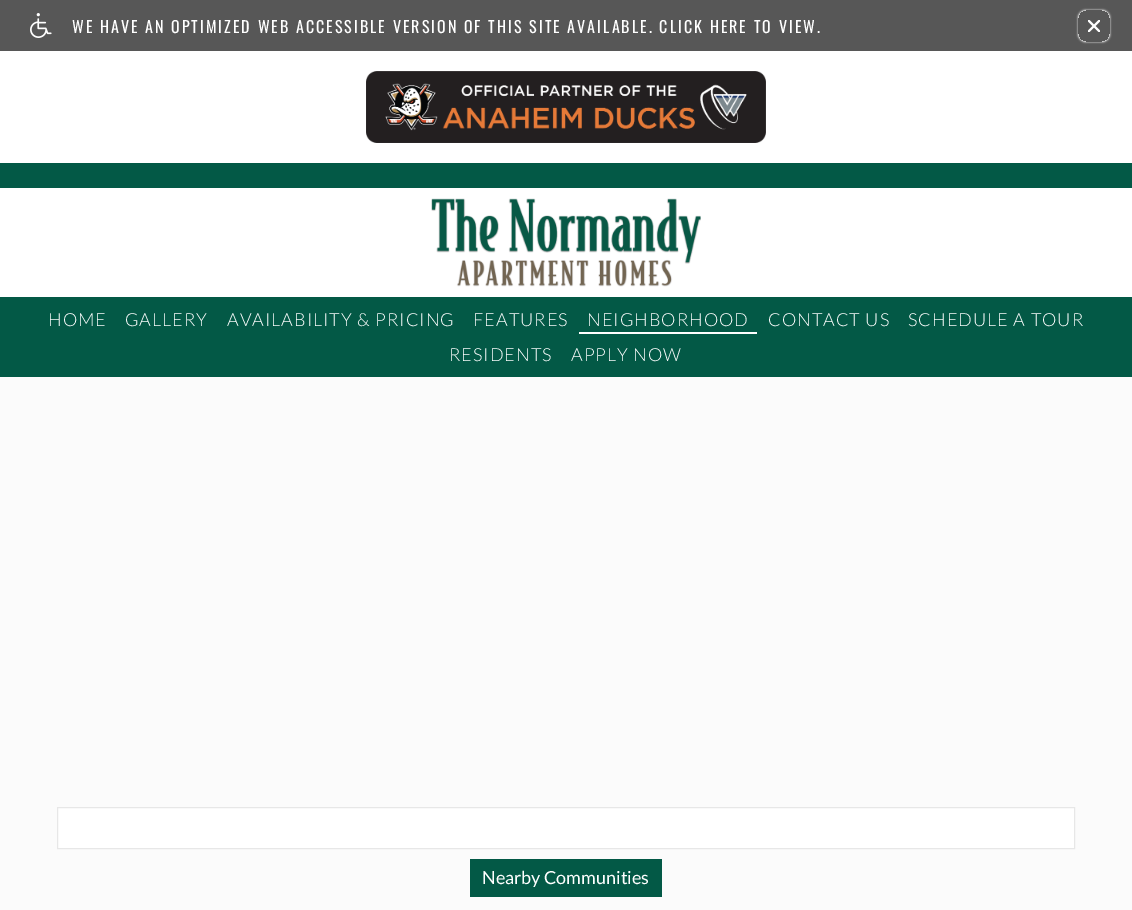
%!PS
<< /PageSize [1132 910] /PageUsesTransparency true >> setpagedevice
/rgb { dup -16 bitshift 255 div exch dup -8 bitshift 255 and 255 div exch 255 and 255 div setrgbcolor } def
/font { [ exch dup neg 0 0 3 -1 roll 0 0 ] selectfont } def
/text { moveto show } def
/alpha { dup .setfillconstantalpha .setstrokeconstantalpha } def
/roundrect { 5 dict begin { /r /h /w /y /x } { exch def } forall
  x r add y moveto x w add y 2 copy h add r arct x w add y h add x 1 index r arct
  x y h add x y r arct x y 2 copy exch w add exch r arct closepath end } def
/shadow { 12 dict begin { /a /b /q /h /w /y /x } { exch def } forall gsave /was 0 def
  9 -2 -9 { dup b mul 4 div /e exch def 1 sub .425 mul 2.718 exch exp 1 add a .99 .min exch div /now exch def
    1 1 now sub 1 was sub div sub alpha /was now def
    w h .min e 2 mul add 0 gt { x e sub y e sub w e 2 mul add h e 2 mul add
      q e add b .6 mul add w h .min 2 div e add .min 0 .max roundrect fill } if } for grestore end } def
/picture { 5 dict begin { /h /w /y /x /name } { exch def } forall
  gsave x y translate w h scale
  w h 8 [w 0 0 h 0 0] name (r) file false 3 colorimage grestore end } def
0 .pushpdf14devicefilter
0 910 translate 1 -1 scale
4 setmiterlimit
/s1 { /Lato-Regular 18 font 16#FFFFFF rgb } def
16#035946 rgb
0 0 1132 910 rectfill
16#575757 rgb
0 0 1132 51 rectfill
(pic1.raw) 30 13 22 25 picture
/Oswald-Regular 16 font
16#FFFFFF rgb
72 33 moveto 2 0 (WE HAVE AN OPTIMIZED WEB ACCESSIBLE VERSION OF THIS SITE AVAILABLE. CLICK HERE TO VIEW.) ashow
gsave
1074 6 moveto 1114 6 lineto 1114 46 lineto 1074 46 lineto closepath 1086 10 moveto 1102 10 lineto 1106.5 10 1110 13.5 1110 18 curveto 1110 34 lineto 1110 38.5 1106.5 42 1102 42 curveto 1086 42 lineto 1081.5 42 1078 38.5 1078 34 curveto 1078 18 lineto 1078 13.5 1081.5 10 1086 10 curveto closepath eoclip newpath
1078 10 32 32 8 1 1 shadow
grestore
gsave
1088 20 12 12 rectclip
2 setlinewidth
1088 32 moveto 1100 20 lineto 1088 20 moveto 1100 32 lineto stroke
grestore
0 51 1132 112 rectfill
(pic2.raw) 366 71 400 72 picture
0 188 1132 109 rectfill
(pic3.raw) 431 198 270 89 picture
/Lato-Light 18 font
48 326 moveto 1 0 (HOME) ashow
125 326 moveto 1 0 (GALLERY) ashow
227 326 moveto 1 0 (AVAILABILITY & PRICING) ashow
473 326 moveto 1 0 (FEATURES) ashow
587 326 moveto 1 0 (NEIGHBORHOOD) ashow
579 332 178 2 rectfill
768 326 moveto 1 0 (CONTACT US) ashow
908 326 moveto 1 0 (SCHEDULE A TOUR) ashow
449 361 moveto 1 0 (RESIDENTS) ashow
571 361 moveto 1 0 (APPLY NOW) ashow
16#FBFBFB rgb
0 377 1132 533 rectfill
16#FFFFFF rgb
57.5 807.5 moveto 1074.5 807.5 lineto 1074.5 848.5 lineto 57.5 848.5 lineto closepath gsave fill grestore
16#E7E7E7 rgb
stroke
16#035946 rgb
470 859 192 38 rectfill
s1
(Nearby Communities) 482 884 text
.poppdf14devicefilter showpage
